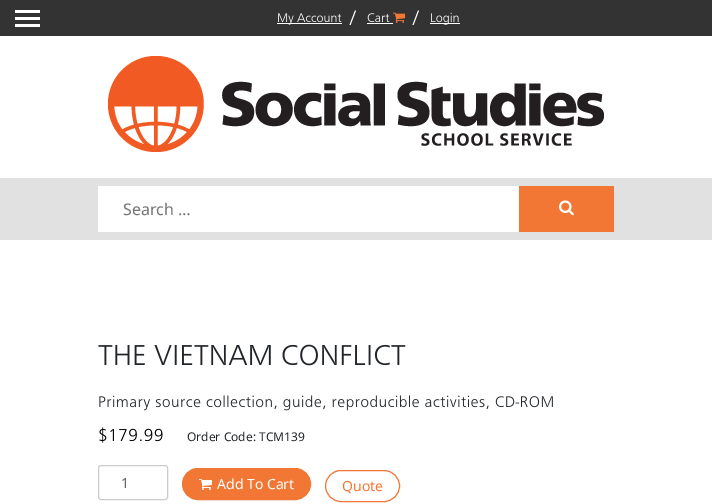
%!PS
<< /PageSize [712 504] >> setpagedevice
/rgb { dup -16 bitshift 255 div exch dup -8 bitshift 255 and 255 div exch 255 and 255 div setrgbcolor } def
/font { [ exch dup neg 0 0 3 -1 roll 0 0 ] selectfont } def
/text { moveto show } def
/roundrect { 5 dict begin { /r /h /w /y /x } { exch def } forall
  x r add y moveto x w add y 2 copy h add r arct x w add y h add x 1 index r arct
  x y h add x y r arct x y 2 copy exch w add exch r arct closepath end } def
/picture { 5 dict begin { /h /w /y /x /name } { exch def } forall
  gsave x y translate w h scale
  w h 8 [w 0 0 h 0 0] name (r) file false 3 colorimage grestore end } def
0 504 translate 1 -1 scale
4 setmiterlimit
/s1 { /NotoSans-Regular 16 font 16#757575 rgb } def
/s2 { /NotoSans-Regular 12 font 16#212529 rgb } def
/s3 { /NotoSans-Regular 14 font 16#666666 rgb } def
/s4 { /NotoSans-Regular 14 font 16#FFFFFF rgb } def
/s5 { /NotoSans-Regular 14 font 16#F37734 rgb } def
16#FFFFFF rgb
0 0 712 504 rectfill
16#333333 rgb
0 0 712 36 rectfill
16#FFFFFF rgb
277 23 65 1 rectfill
(pic1.raw) 278 13 64 12 picture
349.5 25 moveto 350.5 25 lineto 356 10.5 lineto 355 10.5 lineto closepath fill
(pic2.raw) 367 13 23 10 picture
(pic3.raw) 393 12 13 11 picture
367 23 26 1 rectfill
412.5 25 moveto 413.5 25 lineto 419 10.5 lineto 418 10.5 lineto closepath fill
430 23 30 1 rectfill
(pic4.raw) 431 12 28 13 picture
15 17 25 3 rectfill
15 10 25 3 rectfill
15 24 25 3 rectfill
(pic5.raw) 108 56 496 96 picture
16#E1E1E1 rgb
0 178 712 62 rectfill
16#F37734 rgb
519 186 95 46 rectfill
16#FFFFFF rgb
98 186 421 46 rectfill
s1
(Search …) 123 215 text
(pic6.raw) 559 200 15 16 picture
(pic7.raw) 98 344 308 22 picture
(pic8.raw) 99 395 454 16 picture
(pic9.raw) 99 427 8 16 picture
(pic10.raw) 110 428 53 14 picture
s2
(Order Code: TCM139) 187 441 text
16#CCCCCC rgb
98.5 465.5 69 34 2.5 roundrect stroke
s3
(1) 121 488 text
16#F37734 rgb
182.5 468.5 128 31 15.5 roundrect gsave fill grestore
stroke
(pic11.raw) 199 479 13 11 picture
s4
(Add To Cart) 217 489 text
16#F37734 rgb
325.5 470.5 74 31 15.5 roundrect stroke
(Quote) 342 491 text
showpage
